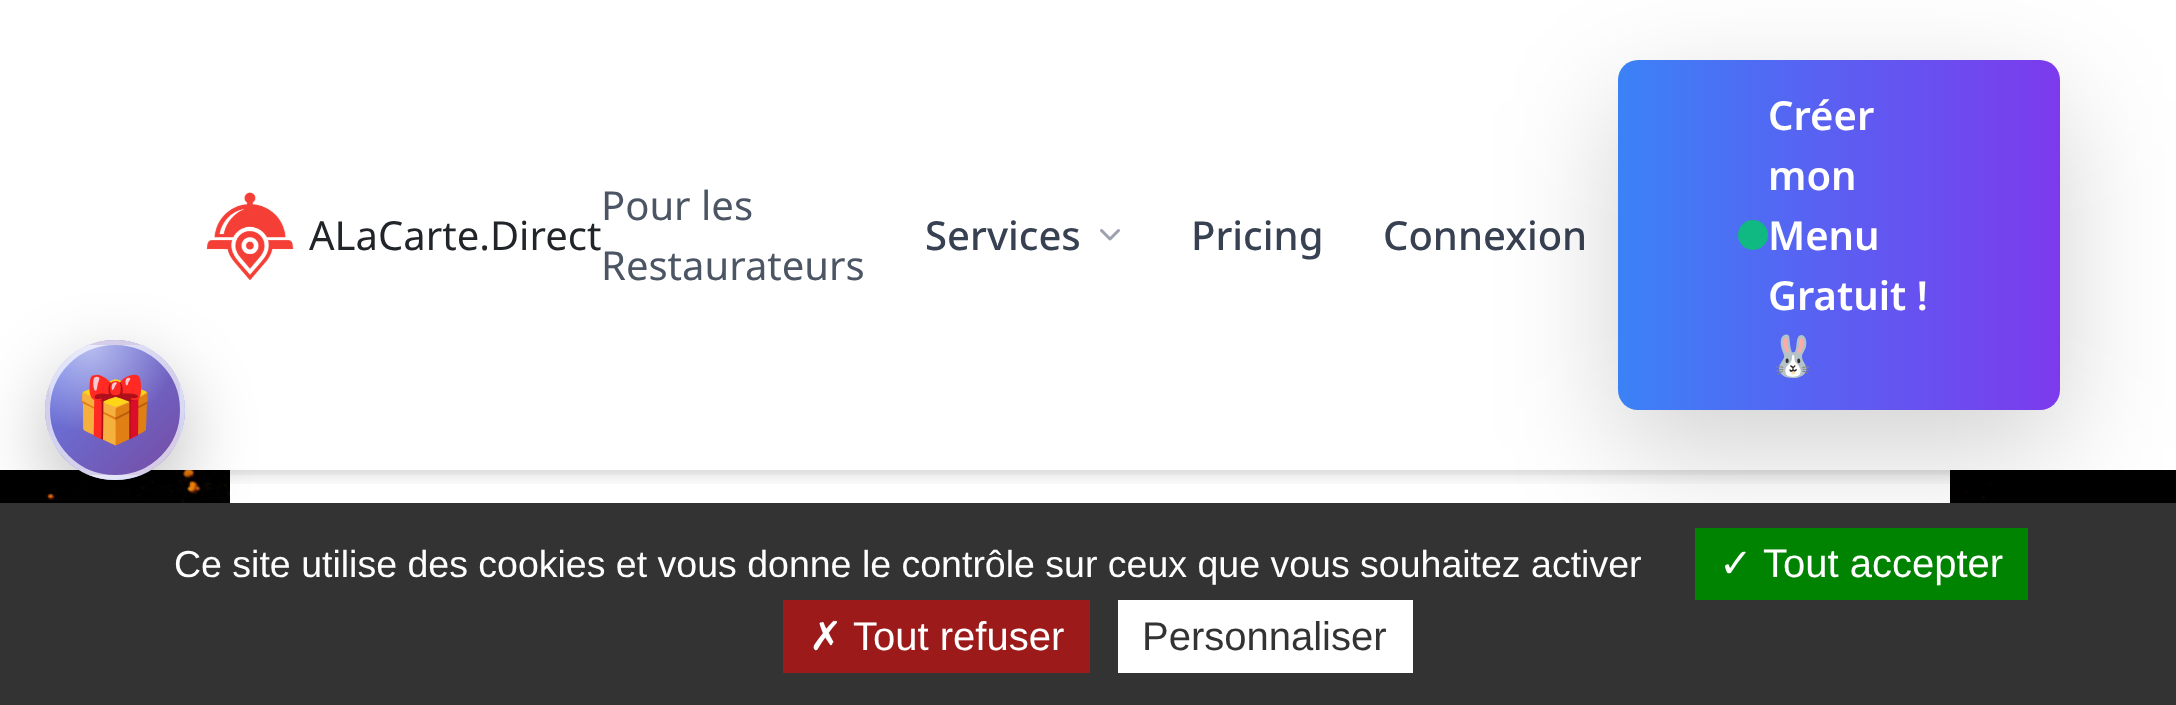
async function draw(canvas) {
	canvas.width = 2176;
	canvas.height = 705;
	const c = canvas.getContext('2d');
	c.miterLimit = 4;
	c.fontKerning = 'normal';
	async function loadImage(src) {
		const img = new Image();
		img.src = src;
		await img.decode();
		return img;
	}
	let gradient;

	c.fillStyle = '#fff';
	c.fillRect(0, 0, 2176, 705);
	c.drawImage(await loadImage('img3.png'), 0, 470, 2176, 33);
	c.beginPath();
	c.roundRect(230, 278, 1720, 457, 30);
	c.fill();
	c.save();
	c.beginPath();
	c.rect(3, 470, 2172, 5);
	c.clip();
	c.fillStyle = '#0000000f';
	c.filter = 'blur(5px)';
	c.beginPath();
	c.rect(3, 8, 2172, 465);
	c.fill();
	c.filter = 'none';
	c.restore();
	c.save();
	c.beginPath();
	c.rect(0, 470, 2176, 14);
	c.clip();
	c.fillStyle = '#0000001a';
	c.filter = 'blur(7.5px)';
	c.beginPath();
	c.rect(3, 13, 2172, 465);
	c.fill();
	c.filter = 'none';
	c.restore();
	c.drawImage(await loadImage('img1.png'), 206, 192, 88, 89);
	c.font = '40px Noto Sans';
	c.fillStyle = '#212529';
	c.fillText('ALaCarte.Direct', 309, 250);
	c.fillStyle = '#4b5563';
	c.fillText('Pour les', 601, 220);
	c.fillText('Restaurateurs', 601, 280);
	c.font = '500 40px Noto Sans';
	c.fillStyle = '#374151';
	c.fillText('Services', 925, 250);
	c.drawImage(await loadImage('img2.png'), 1100, 229, 20, 12);
	c.fillText('Pricing', 1191, 250);
	c.fillText('Connexion', 1383, 250);
	c.fillStyle = '#0000002e';
	c.filter = 'blur(60px)';
	c.beginPath();
	c.roundRect(1618, 100, 442, 350, 20);
	c.fill();
	c.filter = 'none';
	gradient = c.createLinearGradient(1618, 235, 2060, 235);
	gradient.addColorStop(0, '#3b82f6');
	gradient.addColorStop(1, '#7c3aed');
	c.fillStyle = gradient;
	c.beginPath();
	c.roundRect(1618, 60, 442, 350, 20);
	c.fill();
	c.font = '600 40px Noto Sans';
	c.fillStyle = '#fff';
	c.fillText('Créer', 1768, 130);
	c.fillText('mon', 1768, 190);
	c.fillStyle = '#10b981';
	c.beginPath();
	c.arc(1753, 235, 15, 0, 2 * Math.PI);
	c.fill();
	c.fillStyle = '#fff';
	c.fillText('Menu', 1768, 250);
	c.fillText('Gratuit !', 1768, 310);
	c.font = '40px Noto Color Emoji';
	c.fillText('🐰', 1768, 370);
	c.fillStyle = '#00000040';
	c.filter = 'blur(37.5px)';
	c.beginPath();
	c.roundRect(45, 365, 140, 140, 70);
	c.fill();
	c.filter = 'none';
	c.save();
	c.beginPath();
	c.roundRect(45, 340, 140, 140, 70);
	c.clip();
	gradient = c.createLinearGradient(50, 215, 180, 345);
	gradient.addColorStop(0, '#667eea');
	gradient.addColorStop(1, '#764ba2');
	c.fillStyle = gradient;
	c.fillRect(89, 340, 52, 5);
	gradient = c.createLinearGradient(-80, 345, 50, 475);
	gradient.addColorStop(0, '#667eea');
	gradient.addColorStop(1, '#764ba2');
	c.fillStyle = gradient;
	c.fillRect(45, 384, 5, 52);
	gradient = c.createLinearGradient(50, 345, 180, 475);
	gradient.addColorStop(0, '#667eea');
	gradient.addColorStop(1, '#764ba2');
	c.fillStyle = gradient;
	c.fillRect(50, 345, 130, 130);
	gradient = c.createLinearGradient(180, 345, 310, 475);
	gradient.addColorStop(0, '#667eea');
	gradient.addColorStop(1, '#764ba2');
	c.fillStyle = gradient;
	c.fillRect(180, 384, 5, 52);
	gradient = c.createLinearGradient(50, 475, 180, 605);
	gradient.addColorStop(0, '#667eea');
	gradient.addColorStop(1, '#764ba2');
	c.fillStyle = gradient;
	c.fillRect(89, 475, 52, 5);
	gradient = c.createRadialGradient(89, 345, 0, 89, 345, 159);
	gradient.addColorStop(0, '#ffffff87');
	gradient.addColorStop(0.55, '#ffffff00');
	c.fillStyle = gradient;
	c.fillRect(50, 345, 120, 84);
	gradient = c.createRadialGradient(219, 345, 0, 219, 345, 159);
	gradient.addColorStop(0, '#ffffff87');
	gradient.addColorStop(0.55, '#ffffff00');
	c.fillStyle = gradient;
	c.fillRect(180, 384, 5, 37);
	gradient = c.createRadialGradient(89, 475, 0, 89, 475, 159);
	gradient.addColorStop(0, '#ffffff87');
	gradient.addColorStop(0.55, '#ffffff00');
	c.fillStyle = gradient;
	c.fillRect(89, 475, 52, 5);
	c.restore();
	c.beginPath();
	c.arc(115, 410, 67.5, 0, 2 * Math.PI);
	c.strokeStyle = '#ffffffb3';
	c.lineWidth = 5;
	c.stroke();
	c.font = '64px Noto Color Emoji';
	c.fillStyle = '#fff';
	c.fillText('🎁', 75, 432);
	c.fillStyle = '#333';
	c.fillRect(0, 503, 2176, 202);
	c.font = '37.5px Liberation Sans';
	c.fillStyle = '#fff';
	c.fillText('Ce site utilise des cookies et vous donne le contrôle sur ceux que vous souhaitez activer', 174, 577);
	c.fillStyle = '#008300';
	c.fillRect(1695, 528, 333, 72);
	c.font = '40px DejaVu Sans';
	c.fillStyle = '#fff';
	c.fillText('✓', 1719, 577);
	c.font = '40px Liberation Sans';
	c.fillText('Tout accepter', 1763, 577);
	c.fillStyle = '#9c1a1a';
	c.fillRect(783, 600, 307, 73);
	c.font = '40px DejaVu Sans';
	c.fillStyle = '#fff';
	c.fillText('✗', 809, 650);
	c.font = '40px Liberation Sans';
	c.fillText('Tout refuser', 853, 650);
	c.fillRect(1118, 600, 295, 73);
	c.fillStyle = '#333';
	c.fillText('Personnaliser', 1142, 650);
}

draw(document.querySelector('canvas'));
